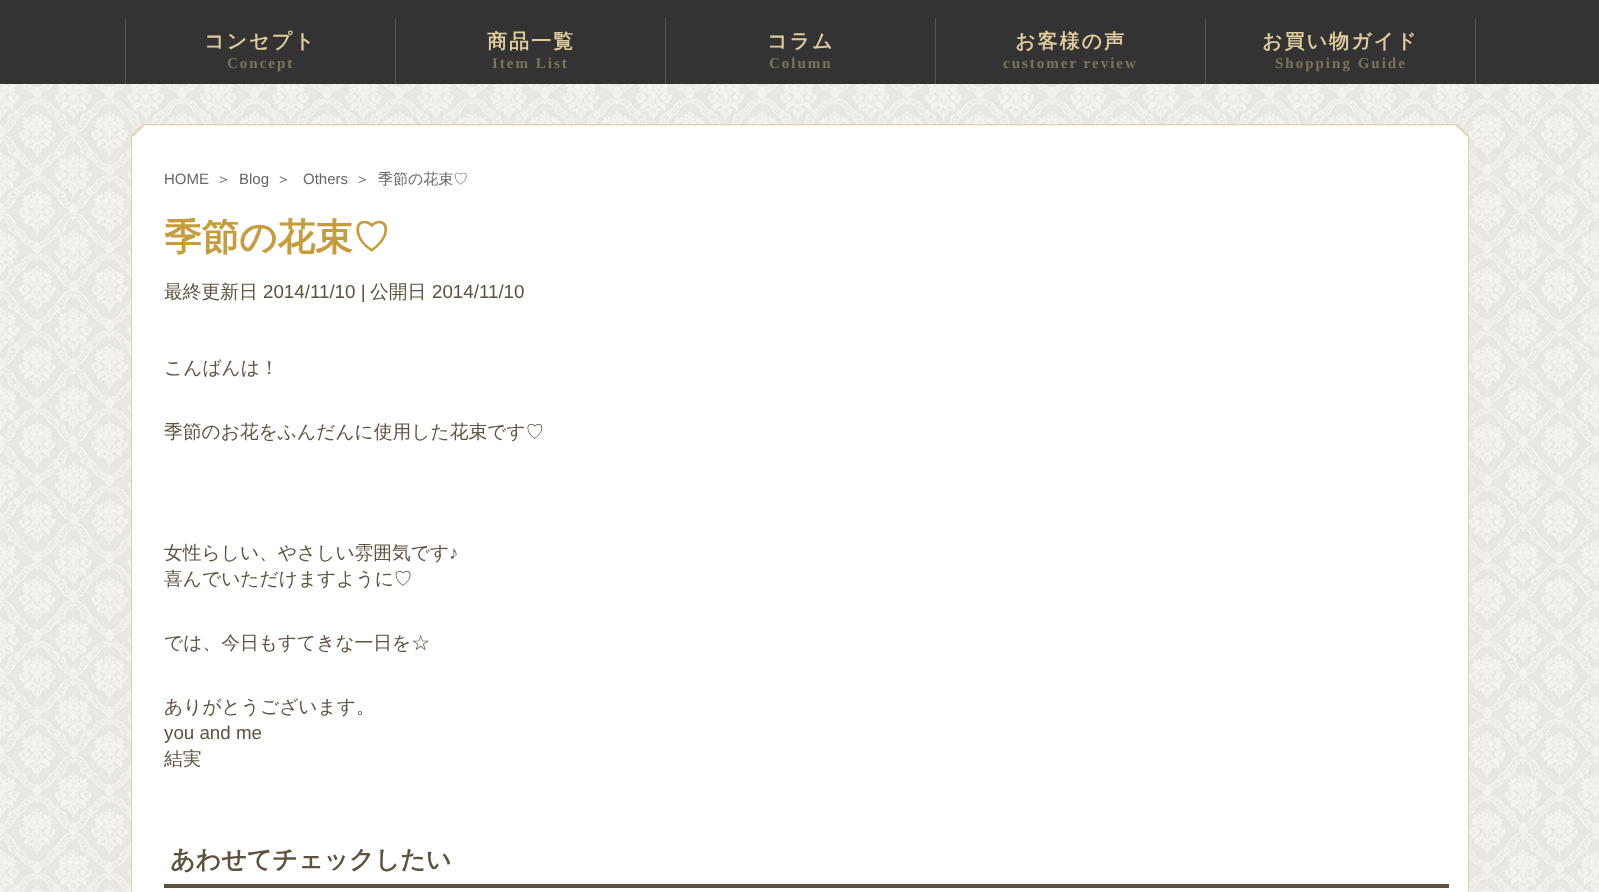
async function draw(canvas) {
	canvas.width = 1599;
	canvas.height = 892;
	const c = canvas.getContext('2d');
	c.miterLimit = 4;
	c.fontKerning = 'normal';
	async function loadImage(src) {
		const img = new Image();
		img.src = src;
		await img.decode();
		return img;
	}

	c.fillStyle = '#fff';
	c.fillRect(0, 0, 1599, 892);
	c.drawImage(await loadImage('img1.png'), 0, 84, 1599, 808);
	for (const [x, y, w, h, color] of [
		[0, 0, 1599, 84, '#333'],
		[125, 18, 1, 66, '#555'],
		[395, 18, 1, 66, '#555'],
	]) {
		c.fillStyle = color;
		c.fillRect(x, y, w, h);
	}
	c.letterSpacing = '2px';
	c.font = 'bold 20px WenQuanYi Zen Hei';
	c.fillStyle = '#decb9e';
	c.fillText('コンセプト', 204, 48);
	c.font = 'bold 15px Liberation Serif';
	c.fillStyle = '#7d745e';
	c.fillText('Concept', 227, 68);
	c.fillStyle = '#555';
	c.fillRect(665, 18, 1, 66);
	c.font = 'bold 20px WenQuanYi Zen Hei';
	c.fillStyle = '#decb9e';
	c.fillText('商品一覧', 487, 48);
	c.font = 'bold 15px Liberation Serif';
	c.fillStyle = '#7d745e';
	c.fillText('Item List', 492, 68);
	c.fillStyle = '#555';
	c.fillRect(935, 18, 1, 66);
	c.font = 'bold 20px WenQuanYi Zen Hei';
	c.fillStyle = '#decb9e';
	c.fillText('コラム', 767, 48);
	c.font = 'bold 15px Liberation Serif';
	c.fillStyle = '#7d745e';
	c.fillText('Column', 769, 68);
	c.fillStyle = '#555';
	c.fillRect(1205, 18, 1, 66);
	c.font = 'bold 20px WenQuanYi Zen Hei';
	c.fillStyle = '#decb9e';
	c.fillText('お客様の声', 1015, 48);
	c.font = 'bold 15px Liberation Serif';
	c.fillStyle = '#7d745e';
	c.fillText('customer review', 1003, 68);
	c.fillStyle = '#555';
	c.fillRect(1475, 18, 1, 66);
	c.font = 'bold 20px WenQuanYi Zen Hei';
	c.fillStyle = '#decb9e';
	c.fillText('お買い物ガイド', 1262, 48);
	c.font = 'bold 15px Liberation Serif';
	c.fillStyle = '#7d745e';
	c.fillText('Shopping Guide', 1275, 68);
	c.drawImage(await loadImage('img2.png'), 131, 124, 13, 12);
	c.drawImage(await loadImage('img3.png'), 143, 124, 1326, 12);
	for (const [x, y, w, h, color] of [
		[132, 136, 1336, 756, '#fff'],
		[1468, 136, 1, 756, '#e1cfb1'],
		[131, 136, 1, 756, '#e1cfb1'],
	]) {
		c.fillStyle = color;
		c.fillRect(x, y, w, h);
	}
	c.letterSpacing = '0px';
	c.font = '15px Liberation Sans';
	c.fillStyle = '#666';
	c.fillText('HOME', 164, 184);
	c.font = '500 15px WenQuanYi Zen Hei';
	c.fillText('＞', 216, 184);
	c.font = '15px Liberation Sans';
	c.fillText('Blog', 239, 184);
	c.font = '500 15px WenQuanYi Zen Hei';
	c.fillText('＞', 276, 184);
	c.font = '15px Liberation Sans';
	c.fillText('Others', 303, 184);
	c.font = '500 15px WenQuanYi Zen Hei';
	c.fillText('＞', 355, 184);
	c.fillText('季節の花束♡', 378, 184);
	c.font = 'bold 37.5px WenQuanYi Zen Hei';
	c.fillStyle = '#c79c3d';
	c.fillText('季節の花束♡', 164, 250);
	c.font = '500 18.75px WenQuanYi Zen Hei';
	c.fillStyle = '#5f523f';
	c.fillText('最終更新日', 164, 298);
	c.font = '18.75px Liberation Sans';
	c.fillText('2014/11/10 |', 263, 298);
	c.font = '500 18.75px WenQuanYi Zen Hei';
	c.fillText('公開日', 370, 298);
	c.font = '18.75px Liberation Sans';
	c.fillText('2014/11/10', 432, 298);
	c.font = '500 18.75px WenQuanYi Zen Hei';
	for (const [text, x, y] of [
		['こんばんは！', 164, 374],
		['季節のお花をふんだんに使用した花束です♡', 164, 438],
		['女性らしい、やさしい雰囲気です', 164, 559],
	]) {
		c.fillText(text, x, y);
	}
	c.font = '18.75px Liberation Sans';
	c.fillText('♪', 449, 559);
	c.font = '500 18.75px WenQuanYi Zen Hei';
	for (const [text, x, y] of [
		['喜んでいただけますように♡', 164, 585],
		['では、今日もすてきな一日を☆', 164, 649],
		['ありがとうございます。', 164, 713],
	]) {
		c.fillText(text, x, y);
	}
	c.font = '18.75px Liberation Sans';
	c.fillText('you and me', 164, 739);
	c.font = '500 18.75px WenQuanYi Zen Hei';
	c.fillText('結実', 164, 765);
	c.fillRect(164, 884, 1285, 4);
	c.font = 'bold 25px WenQuanYi Zen Hei';
	c.fillText('あわせてチェックしたい', 170, 868);
}

draw(document.querySelector('canvas'));
